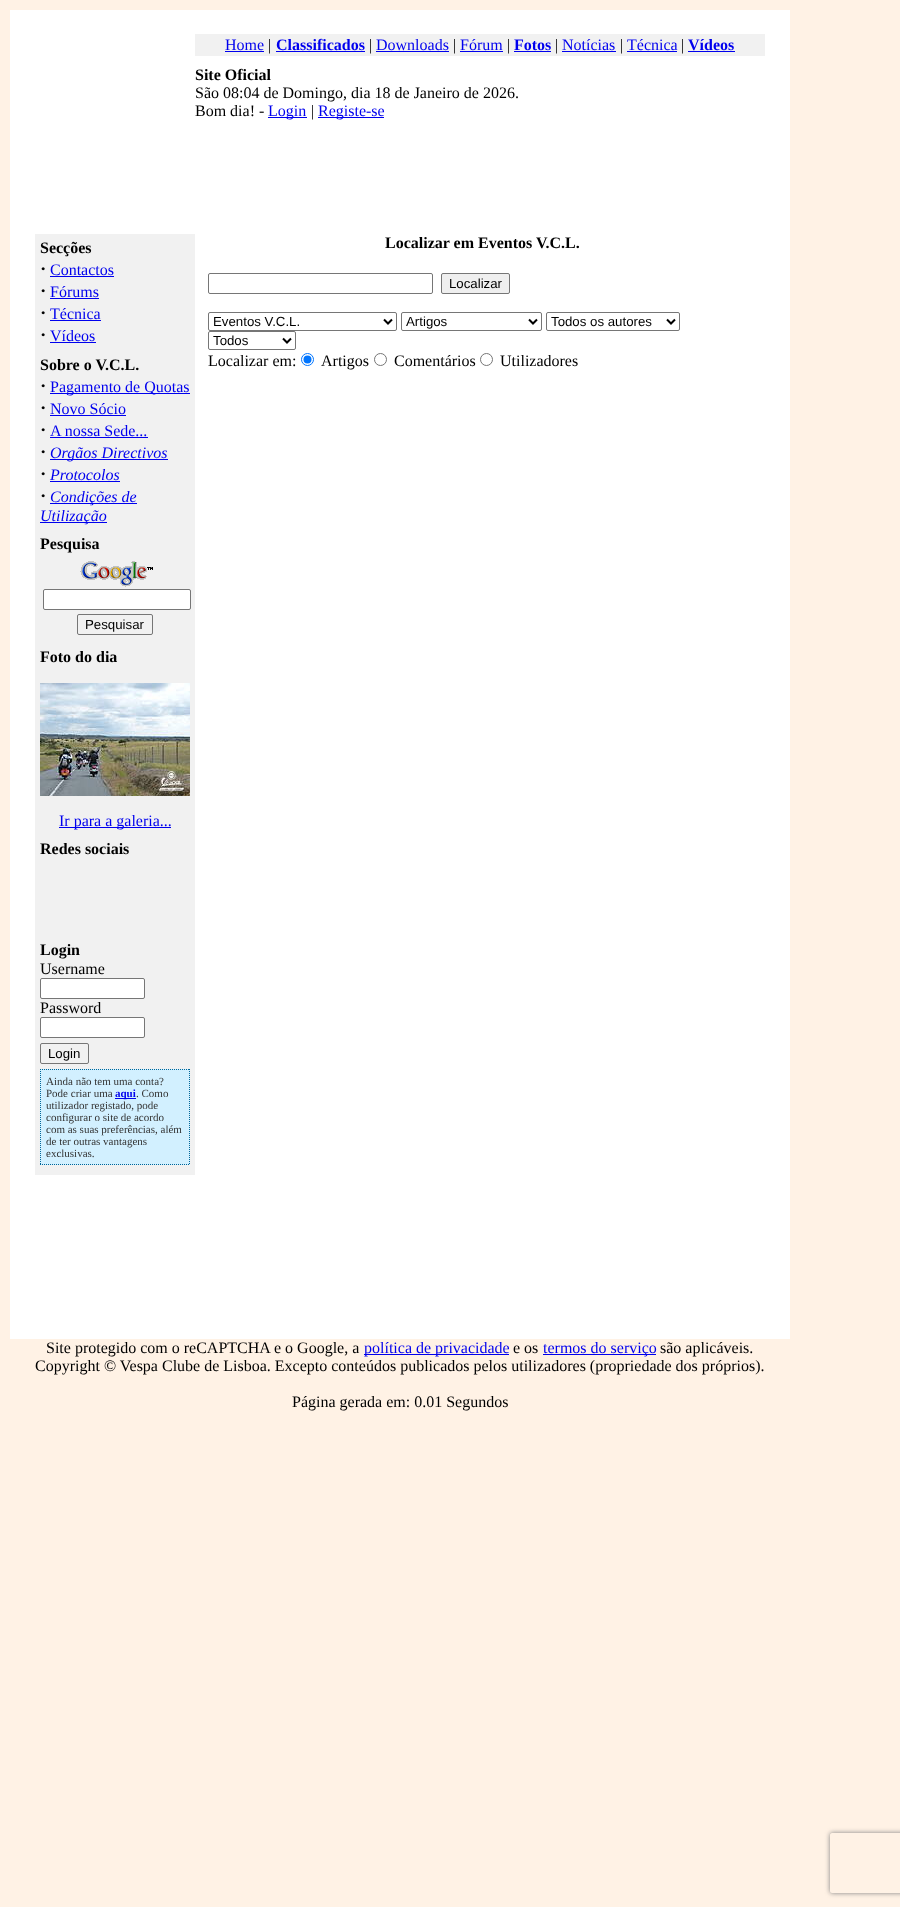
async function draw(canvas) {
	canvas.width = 900;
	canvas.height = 1907;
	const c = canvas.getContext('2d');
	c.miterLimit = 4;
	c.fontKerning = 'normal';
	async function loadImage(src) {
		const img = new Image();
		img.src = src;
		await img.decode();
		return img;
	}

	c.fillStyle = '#fff2e5';
	c.fillRect(0, 0, 900, 1907);
	for (const [x, y, w, h, color] of [
		[10, 10, 780, 23, '#fff'],
		[10, 33, 780, 200, '#fff'],
		[195, 34, 570, 22, '#f1f1f1'],
	]) {
		c.fillStyle = color;
		c.fillRect(x, y, w, h);
	}
	c.font = '16px Liberation Serif';
	c.fillStyle = '#00e';
	c.fillText('Home', 225, 50);
	c.fillRect(225, 51, 39, 1);
	c.fillStyle = '#000';
	c.fillText('|', 268, 50);
	c.font = 'bold 16px Liberation Serif';
	c.fillStyle = '#00e';
	c.fillText('Classificados', 276, 50);
	c.fillRect(276, 51, 89, 1);
	c.font = '16px Liberation Serif';
	c.fillStyle = '#000';
	c.fillText('|', 369, 50);
	c.fillStyle = '#00e';
	c.fillText('Downloads', 376, 50);
	c.fillRect(376, 51, 73, 1);
	c.fillStyle = '#000';
	c.fillText('|', 453, 50);
	c.fillStyle = '#00e';
	c.fillText('Fórum', 460, 50);
	c.fillRect(460, 51, 43, 1);
	c.fillStyle = '#000';
	c.fillText('|', 507, 50);
	c.font = 'bold 16px Liberation Serif';
	c.fillStyle = '#00e';
	c.fillText('Fotos', 514, 50);
	c.fillRect(514, 51, 37, 1);
	c.font = '16px Liberation Serif';
	c.fillStyle = '#000';
	c.fillText('|', 555, 50);
	c.fillStyle = '#00e';
	c.fillText('Notícias', 562, 50);
	c.fillRect(562, 51, 54, 1);
	c.fillStyle = '#000';
	c.fillText('|', 620, 50);
	c.fillStyle = '#00e';
	c.fillText('Técnica', 627, 50);
	c.fillRect(627, 51, 50, 1);
	c.fillStyle = '#000';
	c.fillText('|', 681, 50);
	c.font = 'bold 16px Liberation Serif';
	c.fillStyle = '#00e';
	c.fillText('Vídeos', 688, 50);
	c.fillRect(688, 51, 47, 1);
	c.fillStyle = '#000';
	c.fillText('Site Oficial', 195, 80);
	c.font = '16px Liberation Serif';
	c.fillText('São 08:04 de Domingo, dia 18 de Janeiro de 2026.', 195, 98);
	c.fillText('Bom dia! -', 195, 116);
	c.fillStyle = '#00e';
	c.fillRect(268, 117, 39, 1);
	c.fillText('Login', 268, 116);
	c.fillStyle = '#000';
	c.fillText('|', 311, 116);
	c.fillStyle = '#00e';
	c.fillRect(318, 117, 66, 1);
	c.fillText('Registe-se', 318, 116);
	c.fillStyle = '#fff';
	c.fillRect(10, 233, 780, 943);
	c.fillStyle = '#f1f1f1';
	c.fillRect(35, 234, 160, 941);
	c.font = 'bold 16px Liberation Serif';
	c.fillStyle = '#000';
	c.fillText('Secções', 40, 253);
	c.font = 'bold 19px Liberation Serif';
	c.fillText('·', 40, 275);
	c.font = '16px Liberation Serif';
	c.fillStyle = '#00e';
	c.fillText('Contactos', 50, 275);
	c.fillRect(50, 276, 64, 1);
	c.font = 'bold 19px Liberation Serif';
	c.fillStyle = '#000';
	c.fillText('·', 40, 297);
	c.font = '16px Liberation Serif';
	c.fillStyle = '#00e';
	c.fillText('Fórums', 50, 297);
	c.fillRect(50, 298, 49, 1);
	c.font = 'bold 19px Liberation Serif';
	c.fillStyle = '#000';
	c.fillText('·', 40, 319);
	c.font = '16px Liberation Serif';
	c.fillStyle = '#00e';
	c.fillText('Técnica', 50, 319);
	c.fillRect(50, 320, 51, 1);
	c.font = 'bold 19px Liberation Serif';
	c.fillStyle = '#000';
	c.fillText('·', 40, 341);
	c.font = '16px Liberation Serif';
	c.fillStyle = '#00e';
	c.fillText('Vídeos', 50, 341);
	c.fillRect(50, 342, 46, 1);
	c.font = 'bold 16px Liberation Serif';
	c.fillStyle = '#000';
	c.fillText('Sobre o V.C.L.', 40, 370);
	c.font = 'bold 19px Liberation Serif';
	c.fillText('·', 40, 392);
	c.fillStyle = '#00e';
	c.fillRect(50, 393, 140, 1);
	c.font = '16px Liberation Serif';
	c.fillText('Pagamento de Quotas', 50, 392);
	c.font = 'bold 19px Liberation Serif';
	c.fillStyle = '#000';
	c.fillText('·', 40, 414);
	c.font = '16px Liberation Serif';
	c.fillStyle = '#00e';
	c.fillText('Novo Sócio', 50, 414);
	c.fillRect(50, 415, 76, 1);
	c.font = 'bold 19px Liberation Serif';
	c.fillStyle = '#000';
	c.fillText('·', 40, 436);
	c.font = '16px Liberation Serif';
	c.fillStyle = '#00e';
	c.fillText('A nossa Sede...', 50, 436);
	c.fillRect(50, 437, 98, 1);
	c.font = 'bold 19px Liberation Serif';
	c.fillStyle = '#000';
	c.fillText('·', 40, 458);
	c.fillStyle = '#00e';
	c.fillRect(50, 459, 118, 1);
	c.font = 'italic 16px Liberation Serif';
	c.fillText('Orgãos Directivos', 50, 458);
	c.font = 'bold 19px Liberation Serif';
	c.fillStyle = '#000';
	c.fillText('·', 40, 480);
	c.font = 'italic 16px Liberation Serif';
	c.fillStyle = '#00e';
	c.fillText('Protocolos', 50, 480);
	c.fillRect(50, 481, 70, 1);
	c.font = 'bold 19px Liberation Serif';
	c.fillStyle = '#000';
	c.fillText('·', 40, 502);
	c.fillStyle = '#00e';
	c.fillRect(50, 503, 87, 1);
	c.font = 'italic 16px Liberation Serif';
	c.fillText('Condições de', 50, 502);
	c.fillRect(40, 522, 67, 1);
	c.fillText('Utilização', 40, 521);
	c.font = 'bold 16px Liberation Serif';
	c.fillStyle = '#000';
	c.fillText('Pesquisa', 40, 549);
	c.drawImage(await loadImage('img1.png'), 80, 561, 73, 26);
	c.fillStyle = '#fff';
	c.beginPath();
	c.roundRect(43.5, 589.5, 147, 20, 1.5);
	c.fill();
	c.strokeStyle = '#767676';
	c.stroke();
	c.beginPath();
	c.roundRect(77.5, 614.5, 75, 20, 1.5);
	c.stroke();
	c.font = '13.25px Liberation Sans';
	c.fillStyle = '#000';
	c.fillText('Pesquisar', 85, 629);
	c.font = 'bold 16px Liberation Serif';
	c.fillText('Foto do dia', 40, 662);
	c.drawImage(await loadImage('img2.png'), 40, 683, 150, 113);
	c.fillStyle = '#00e';
	c.fillRect(59, 827, 112, 1);
	c.font = '16px Liberation Serif';
	c.fillText('Ir para a galeria...', 59, 826);
	c.font = 'bold 16px Liberation Serif';
	c.fillStyle = '#000';
	c.fillText('Redes sociais', 40, 854);
	c.fillText('Login', 40, 955);
	c.font = '16px Liberation Serif';
	c.fillText('Username', 40, 974);
	c.fillStyle = '#fff';
	c.beginPath();
	c.roundRect(40.5, 978.5, 104, 20, 1.5);
	c.fill();
	c.stroke();
	c.fillStyle = '#000';
	c.fillText('Password', 40, 1013);
	c.fillStyle = '#fff';
	c.beginPath();
	c.roundRect(40.5, 1017.5, 104, 20, 1.5);
	c.fill();
	c.stroke();
	c.beginPath();
	c.roundRect(40.5, 1043.5, 48, 20, 1.5);
	c.stroke();
	c.font = '13.25px Liberation Sans';
	c.fillStyle = '#000';
	c.fillText('Login', 48, 1058);
	c.fillStyle = '#d2f0ff';
	c.fillRect(40, 1069, 150, 96);
	c.beginPath();
	c.moveTo(40, 1069.5);
	c.lineTo(190, 1069.5);
	c.strokeStyle = '#069';
	c.setLineDash([1, 1]);
	c.stroke();
	c.beginPath();
	c.moveTo(189.5, 1069);
	c.lineTo(189.5, 1165);
	c.stroke();
	c.beginPath();
	c.moveTo(40, 1164.5);
	c.lineTo(190, 1164.5);
	c.stroke();
	c.beginPath();
	c.moveTo(40.5, 1069);
	c.lineTo(40.5, 1165);
	c.stroke();
	c.font = '11px Liberation Serif';
	c.fillStyle = '#333';
	c.fillText('Ainda não tem uma conta?', 46, 1085);
	c.fillText('Pode criar uma', 46, 1097);
	c.fillStyle = '#00e';
	c.fillRect(115, 1098, 21, 1);
	c.font = 'bold 11px Liberation Serif';
	c.fillText('aqui', 115, 1097);
	c.font = '11px Liberation Serif';
	c.fillStyle = '#333';
	for (const [text, x, y] of [
		['. Como', 136, 1097],
		['utilizador registado, pode', 46, 1109],
		['configurar o site de acordo', 46, 1121],
		['com as suas preferências, além', 46, 1133],
		['de ter outras vantagens', 46, 1145],
		['exclusivas.', 46, 1157],
	]) {
		c.fillText(text, x, y);
	}
	c.font = 'bold 16px Liberation Serif';
	c.fillStyle = '#000';
	c.fillText('Localizar em Eventos V.C.L.', 385, 248);
	c.beginPath();
	c.roundRect(208.5, 273.5, 224, 20, 1.5);
	c.strokeStyle = '#767676';
	c.setLineDash([]);
	c.stroke();
	c.fillStyle = '#efefef';
	c.beginPath();
	c.roundRect(441.5, 273.5, 68, 20, 1.5);
	c.fill();
	c.stroke();
	c.font = '13.25px Liberation Sans';
	c.fillStyle = '#000';
	c.fillText('Localizar', 449, 288);
	c.beginPath();
	c.roundRect(208.5, 312.5, 188, 18, 1.5);
	c.stroke();
	c.beginPath();
	c.moveTo(384, 319.5);
	c.lineTo(388, 323.5);
	c.lineTo(392, 319.5);
	c.strokeStyle = '#000';
	c.lineWidth = 2;
	c.stroke();
	c.fillText('Eventos V.C.L.', 213, 326);
	c.beginPath();
	c.roundRect(401.5, 312.5, 140, 18, 1.5);
	c.strokeStyle = '#767676';
	c.lineWidth = 1;
	c.stroke();
	c.beginPath();
	c.moveTo(529, 319.5);
	c.lineTo(533, 323.5);
	c.lineTo(537, 319.5);
	c.strokeStyle = '#000';
	c.lineWidth = 2;
	c.stroke();
	c.fillText('Artigos', 406, 326);
	c.beginPath();
	c.roundRect(546.5, 312.5, 133, 18, 1.5);
	c.strokeStyle = '#767676';
	c.lineWidth = 1;
	c.stroke();
	c.beginPath();
	c.moveTo(667, 319.5);
	c.lineTo(671, 323.5);
	c.lineTo(675, 319.5);
	c.strokeStyle = '#000';
	c.lineWidth = 2;
	c.stroke();
	c.fillText('Todos os autores', 551, 326);
	c.beginPath();
	c.roundRect(208.5, 331.5, 87, 18, 1.5);
	c.strokeStyle = '#767676';
	c.lineWidth = 1;
	c.stroke();
	c.beginPath();
	c.moveTo(283, 338.5);
	c.lineTo(287, 342.5);
	c.lineTo(291, 338.5);
	c.strokeStyle = '#000';
	c.lineWidth = 2;
	c.stroke();
	c.fillText('Todos', 213, 345);
	c.font = '16px Liberation Serif';
	c.fillText('Localizar em:', 208, 366);
	c.beginPath();
	c.arc(307.5, 359.5, 6, 0, 2 * Math.PI);
	c.strokeStyle = '#0075ff';
	c.lineWidth = 1;
	c.stroke();
	c.fillStyle = '#0075ff';
	c.beginPath();
	c.arc(307.5, 359.5, 4, 0, 2 * Math.PI);
	c.fill();
	c.fillStyle = '#000';
	c.fillText('Artigos', 321, 366);
	c.beginPath();
	c.arc(380.5, 359.5, 6, 0, 2 * Math.PI);
	c.strokeStyle = '#767676';
	c.stroke();
	c.fillText('Comentários', 394, 366);
	c.beginPath();
	c.arc(486.5, 359.5, 6, 0, 2 * Math.PI);
	c.stroke();
	c.fillText('Utilizadores', 500, 366);
	for (const [x, y, w, h, color] of [
		[10, 1176, 780, 122, '#fff'],
		[10, 1298, 780, 18, '#fff'],
		[10, 1316, 780, 23, '#fff'],
	]) {
		c.fillStyle = color;
		c.fillRect(x, y, w, h);
	}
	c.fillStyle = '#000';
	c.fillText('Site protegido com o reCAPTCHA e o Google, a', 46, 1353);
	c.fillStyle = '#00e';
	c.fillRect(364, 1354, 145, 1);
	c.fillText('política de privacidade', 364, 1353);
	c.fillStyle = '#000';
	c.fillText('e os', 513, 1353);
	c.fillStyle = '#00e';
	c.fillRect(543, 1354, 113, 1);
	c.fillText('termos do serviço', 543, 1353);
	c.fillStyle = '#000';
	for (const [text, x, y] of [
		['são aplicáveis.', 660, 1353],
		['Copyright © Vespa Clube de Lisboa. Excepto conteúdos publicados pelos utilizadores (propriedade dos próprios).', 35, 1371],
		['Página gerada em: 0.01 Segundos', 292, 1407],
	]) {
		c.fillText(text, x, y);
	}
	c.save();
	c.beginPath();
	c.moveTo(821, 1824);
	c.lineTo(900, 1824);
	c.lineTo(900, 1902);
	c.lineTo(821, 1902);
	c.closePath();
	c.moveTo(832, 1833);
	c.lineTo(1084, 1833);
	c.bezierCurveTo(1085, 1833, 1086, 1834, 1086, 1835);
	c.lineTo(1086, 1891);
	c.bezierCurveTo(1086, 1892, 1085, 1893, 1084, 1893);
	c.lineTo(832, 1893);
	c.bezierCurveTo(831, 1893, 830, 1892, 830, 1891);
	c.lineTo(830, 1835);
	c.bezierCurveTo(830, 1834, 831, 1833, 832, 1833);
	c.closePath();
	c.clip('evenodd');
	c.fillStyle = '#808080';
	c.filter = 'blur(2.5px)';
	c.beginPath();
	c.roundRect(830, 1833, 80, 60, 2);
	c.fill();
	c.filter = 'none';
	c.restore();
}

draw(document.querySelector('canvas'));
